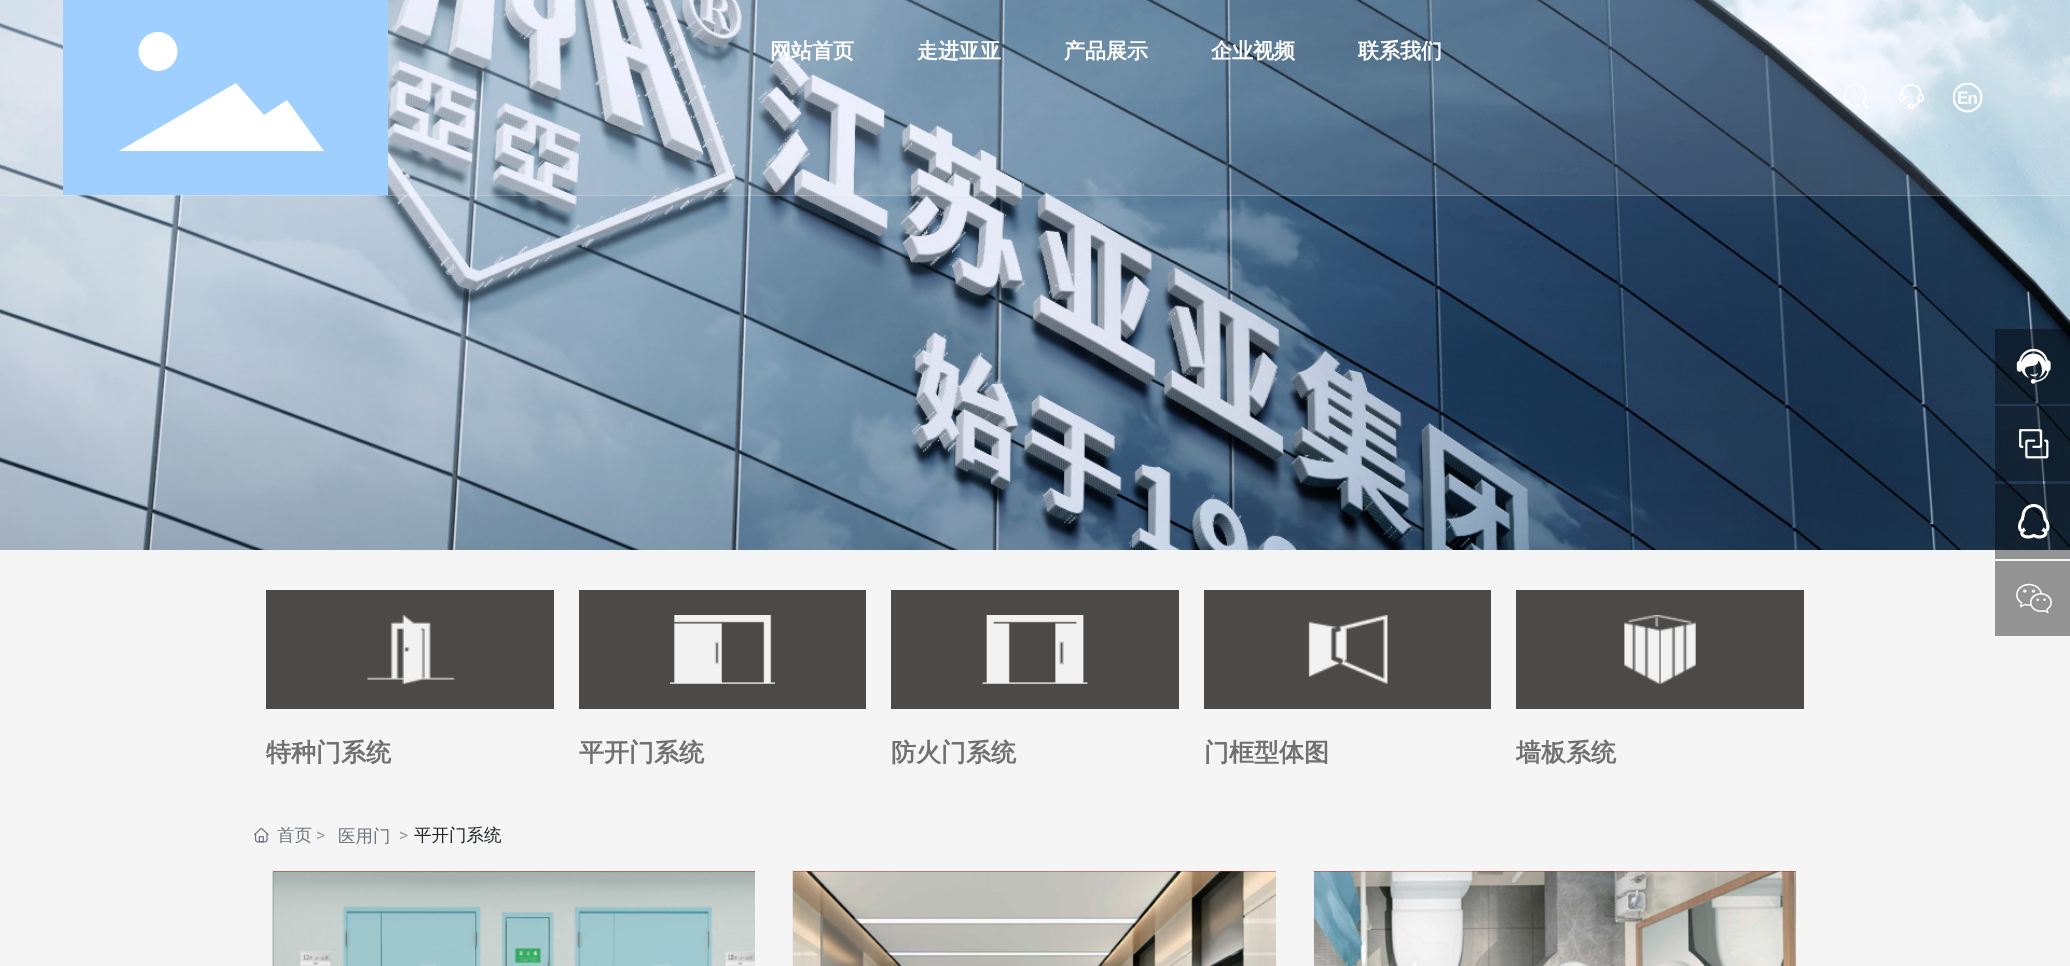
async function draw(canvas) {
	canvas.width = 2070;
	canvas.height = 966;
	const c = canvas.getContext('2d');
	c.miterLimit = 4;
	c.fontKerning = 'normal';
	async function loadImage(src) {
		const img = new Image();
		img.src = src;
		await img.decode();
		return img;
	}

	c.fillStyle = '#fff';
	c.fillRect(0, 0, 2070, 966);
	c.drawImage(await loadImage('img1.png'), 0, 0, 2070, 550);
	for (const [x, y, w, h, color] of [
		[0, 0, 2070, 196, '#ffffff1a'],
		[0, 195, 2070, 1, '#ffffff33'],
		[63, 0, 325, 195, '#9fcfff'],
	]) {
		c.fillStyle = color;
		c.fillRect(x, y, w, h);
	}
	c.fillStyle = '#fff';
	c.beginPath();
	c.arc(158, 51.5, 19.5, 0, 2 * Math.PI);
	c.fill();
	c.beginPath();
	c.moveTo(119, 151);
	c.lineTo(236, 83);
	c.lineTo(264, 115);
	c.lineTo(287, 100);
	c.lineTo(324, 151);
	c.closePath();
	c.fill();
	c.font = 'bold 21px WenQuanYi Zen Hei';
	for (const [text, x, y] of [
		['网站首页', 770, 58],
		['走进亚亚', 917, 58],
		['产品展示', 1064, 58],
		['企业视频', 1211, 58],
		['联系我们', 1358, 58],
	]) {
		c.fillText(text, x, y);
	}
	c.drawImage(await loadImage('img2.png'), 1844, 84, 25, 25);
	c.drawImage(await loadImage('img3.png'), 1899, 84, 25, 25);
	c.drawImage(await loadImage('img4.png'), 1953, 83, 30, 30);
	c.fillStyle = '#f5f5f5';
	c.fillRect(0, 550, 2070, 416);
	c.fillStyle = '#4c4a49';
	c.fillRect(266, 590, 288, 119);
	c.drawImage(await loadImage('img5.png'), 367, 615, 88, 69);
	c.font = 'bold 25px WenQuanYi Zen Hei';
	c.fillStyle = '#707070';
	c.fillText('特种门系统', 266, 761);
	c.fillStyle = '#4c4a49';
	c.fillRect(579, 590, 287, 119);
	c.drawImage(await loadImage('img6.png'), 670, 615, 105, 69);
	c.fillStyle = '#707070';
	c.fillText('平开门系统', 579, 761);
	c.fillStyle = '#4c4a49';
	c.fillRect(891, 590, 288, 119);
	c.drawImage(await loadImage('img7.png'), 982, 615, 106, 69);
	c.fillStyle = '#707070';
	c.fillText('防火门系统', 891, 761);
	c.fillStyle = '#4c4a49';
	c.fillRect(1204, 590, 287, 119);
	c.drawImage(await loadImage('img8.png'), 1308, 615, 80, 69);
	c.fillStyle = '#707070';
	c.fillText('门框型体图', 1204, 761);
	c.fillStyle = '#4c4a49';
	c.fillRect(1516, 590, 288, 119);
	c.drawImage(await loadImage('img9.png'), 1624, 615, 72, 69);
	c.fillStyle = '#707070';
	c.fillText('墙板系统', 1516, 761);
	c.drawImage(await loadImage('img10.png'), 254, 828, 15, 15);
	c.font = '500 17.5px WenQuanYi Zen Hei';
	c.fillStyle = '#6c757d';
	c.fillText('首页', 277, 841);
	c.font = '17.5px Roboto';
	c.fillStyle = '#999';
	c.fillText('>', 316, 841);
	c.font = '500 17.5px WenQuanYi Zen Hei';
	c.fillStyle = '#6c757d';
	c.fillText('医用门', 338, 842);
	c.font = '17.5px Roboto';
	c.fillStyle = '#999';
	c.fillText('>', 399, 841);
	c.font = '500 17.5px WenQuanYi Zen Hei';
	c.fillStyle = '#212529';
	c.fillText('平开门系统', 414, 841);
	c.fillStyle = '#b61d22';
	c.fillRect(273, 871, 482, 1);
	c.drawImage(await loadImage('img11.png'), 272, 871, 483, 95);
	c.fillRect(793, 871, 483, 1);
	c.drawImage(await loadImage('img12.png'), 792, 871, 485, 95);
	c.fillRect(1314, 871, 482, 1);
	c.drawImage(await loadImage('img13.png'), 1313, 871, 484, 95);
	c.fillStyle = '#00000066';
	c.fillRect(1995, 329, 75, 75);
	c.drawImage(await loadImage('img14.png'), 2016, 348, 35, 36);
	c.fillRect(1995, 406, 75, 75);
	c.drawImage(await loadImage('img15.png'), 2019, 429, 30, 30);
	c.fillRect(1995, 484, 75, 75);
	c.drawImage(await loadImage('img16.png'), 2018, 504, 32, 35);
	c.fillStyle = '#939393';
	c.fillRect(1995, 561, 75, 75);
	c.drawImage(await loadImage('img17.png'), 2016, 583, 36, 31);
}

draw(document.querySelector('canvas'));
